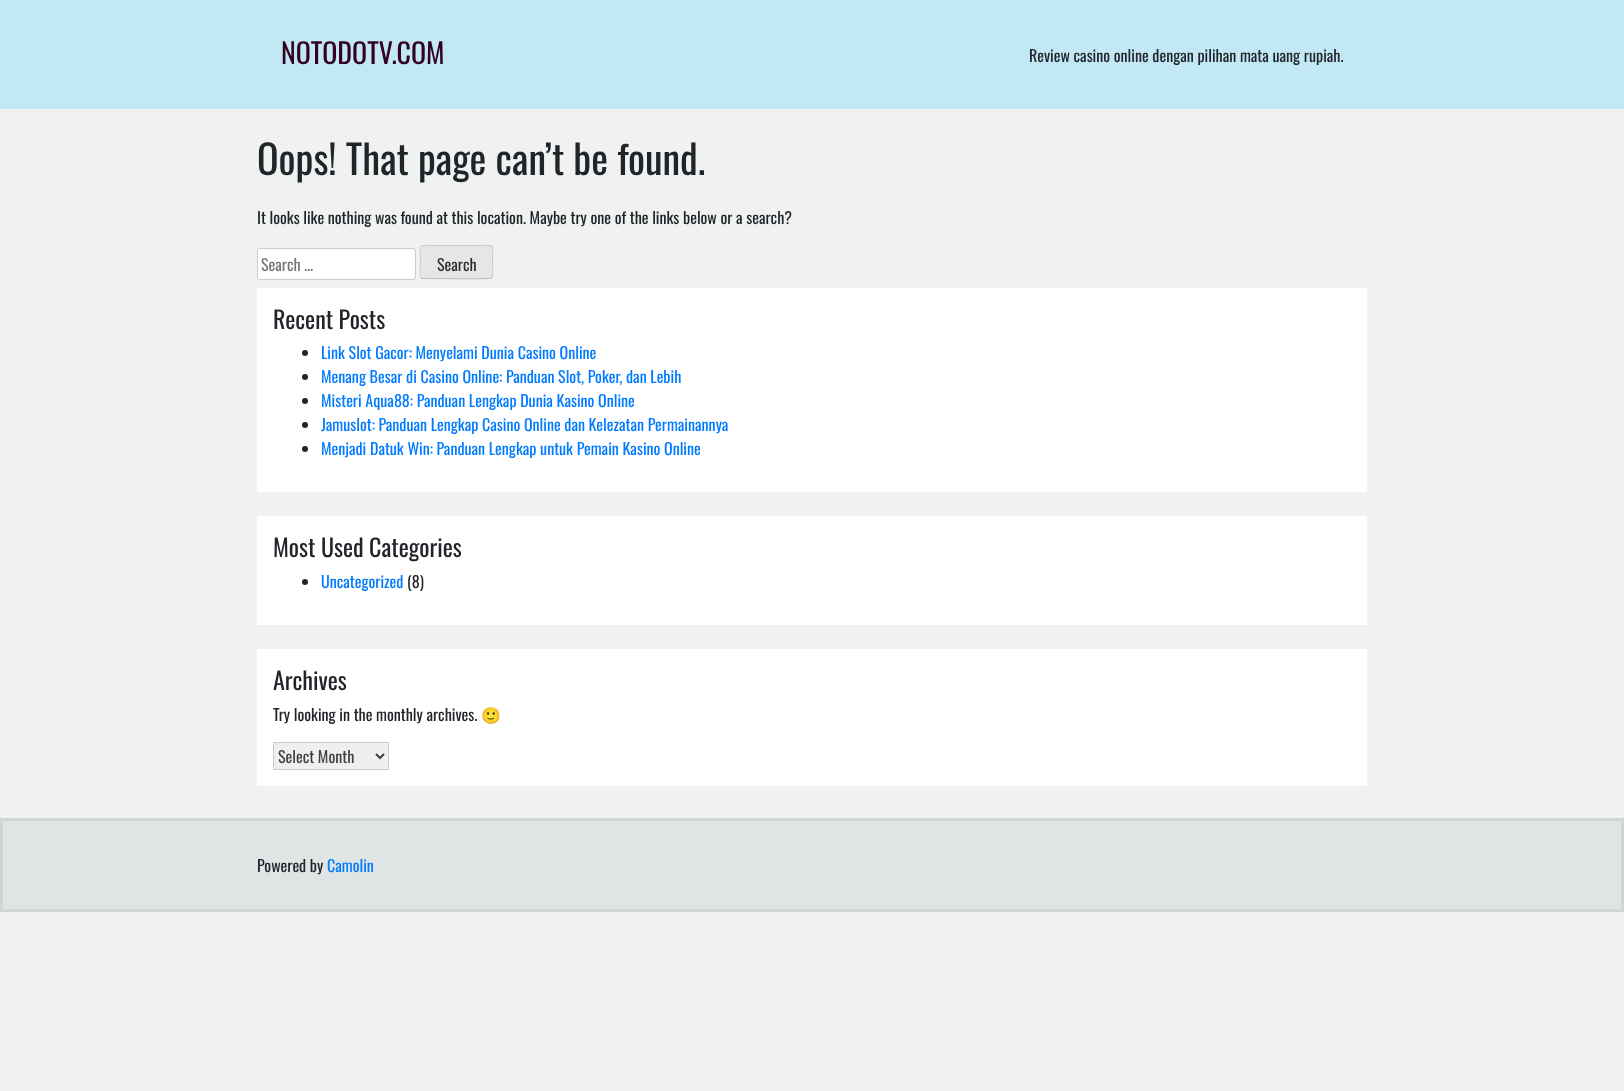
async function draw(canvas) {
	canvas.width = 1624;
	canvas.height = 1091;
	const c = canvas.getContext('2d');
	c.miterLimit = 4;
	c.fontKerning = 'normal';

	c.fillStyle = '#f0f2f2';
	c.fillRect(0, 0, 1624, 1091);
	c.fillStyle = '#c2e8f6';
	c.fillRect(0, 0, 1624, 109);
	c.font = '28px Oswald';
	c.fillStyle = '#32021f';
	c.fillText('NOTODOTV.COM', 281, 64);
	c.font = '16px Oswald';
	c.fillStyle = '#212529';
	c.fillText('Review casino online dengan pilihan mata uang rupiah.', 1029, 62);
	c.font = '40px Oswald';
	c.fillText('Oops! That page can’t be found.', 257, 175);
	c.font = '16px Oswald';
	c.fillText('It looks like nothing was found at this location. Maybe try one of the links below or a search?', 257, 224);
	c.fillStyle = '#fff';
	c.beginPath();
	c.roundRect(257.5, 248.5, 158, 31, 2.5);
	c.fill();
	c.strokeStyle = '#ccc';
	c.stroke();
	c.fillStyle = '#757575';
	c.fillText('Search …', 261, 271);
	c.fillStyle = '#e6e6e6';
	c.beginPath();
	c.roundRect(420, 245, 73, 34, 3);
	c.fill();
	c.beginPath();
	c.moveTo(492, 278);
	c.lineTo(491.5, 278);
	c.bezierCurveTo(489.5, 279.5, 440.5, 278.5, 434, 278.5);
	c.lineTo(423, 278.5);
	c.lineTo(421, 278);
	c.strokeStyle = '#bbb';
	c.stroke();
	c.beginPath();
	c.moveTo(421, 278);
	c.bezierCurveTo(419.5, 276, 420.5, 264.5, 420.5, 262);
	c.bezierCurveTo(420.5, 243.5, 416.5, 245.5, 434, 245.5);
	c.lineTo(479, 245.5);
	c.bezierCurveTo(496.5, 245.5, 492.5, 243.5, 492.5, 262);
	c.bezierCurveTo(492.5, 264.5, 493.5, 276, 492, 278);
	c.strokeStyle = '#ccc';
	c.stroke();
	c.fillStyle = '#2e2e2e';
	c.fillText('Search', 437, 271);
	c.fillStyle = '#fff';
	c.fillRect(257, 288, 1110, 204);
	c.font = '24px Oswald';
	c.fillStyle = '#212529';
	c.fillText('Recent Posts', 273, 329);
	c.beginPath();
	c.arc(305, 353, 3, 0, 2 * Math.PI);
	c.fill();
	c.font = '16px Oswald';
	c.fillStyle = '#007bff';
	c.fillText('Link Slot Gacor: Menyelami Dunia Casino Online', 321, 359);
	c.fillStyle = '#212529';
	c.beginPath();
	c.arc(305, 377, 3, 0, 2 * Math.PI);
	c.fill();
	c.fillStyle = '#007bff';
	c.fillText('Menang Besar di Casino Online: Panduan Slot, Poker, dan Lebih', 321, 383);
	c.fillStyle = '#212529';
	c.beginPath();
	c.arc(305, 401, 3, 0, 2 * Math.PI);
	c.fill();
	c.fillStyle = '#007bff';
	c.fillText('Misteri Aqua88: Panduan Lengkap Dunia Kasino Online', 321, 407);
	c.fillStyle = '#212529';
	c.beginPath();
	c.arc(305, 425, 3, 0, 2 * Math.PI);
	c.fill();
	c.fillStyle = '#007bff';
	c.fillText('Jamuslot: Panduan Lengkap Casino Online dan Kelezatan Permainannya', 321, 431);
	c.fillStyle = '#212529';
	c.beginPath();
	c.arc(305, 449, 3, 0, 2 * Math.PI);
	c.fill();
	c.fillStyle = '#007bff';
	c.fillText('Menjadi Datuk Win: Panduan Lengkap untuk Pemain Kasino Online', 321, 455);
	c.fillStyle = '#fff';
	c.fillRect(257, 516, 1110, 109);
	c.font = '24px Oswald';
	c.fillStyle = '#212529';
	c.fillText('Most Used Categories', 273, 557);
	c.beginPath();
	c.arc(305, 582, 3, 0, 2 * Math.PI);
	c.fill();
	c.font = '16px Oswald';
	c.fillStyle = '#007bff';
	c.fillText('Uncategorized', 321, 588);
	c.fillStyle = '#212529';
	c.fillText('(8)', 407, 588);
	c.fillStyle = '#fff';
	c.fillRect(257, 649, 1110, 137);
	c.font = '24px Oswald';
	c.fillStyle = '#212529';
	c.fillText('Archives', 273, 690);
	c.font = '16px Oswald';
	c.fillText('Try looking in the monthly archives.', 273, 721);
	c.font = '16px Noto Color Emoji';
	c.fillText('🙂', 481, 721);
	c.fillStyle = '#efefef';
	c.beginPath();
	c.rect(273.5, 742.5, 115, 27);
	c.fill();
	c.stroke();
	c.beginPath();
	c.moveTo(376, 754);
	c.lineTo(380, 758);
	c.lineTo(384, 754);
	c.strokeStyle = '#404040';
	c.lineWidth = 2;
	c.stroke();
	c.font = '16px Oswald';
	c.fillStyle = '#404040';
	c.fillText('Select Month', 278, 763);
	c.fillStyle = '#e0e4e4';
	c.beginPath();
	c.rect(1.5, 819.5, 1621, 91);
	c.fill();
	c.strokeStyle = '#cfd6d6';
	c.lineWidth = 3;
	c.stroke();
	c.fillStyle = '#212529';
	c.fillText('Powered by', 257, 872);
	c.fillStyle = '#007bff';
	c.fillText('Camolin', 327, 872);
}

draw(document.querySelector('canvas'));
